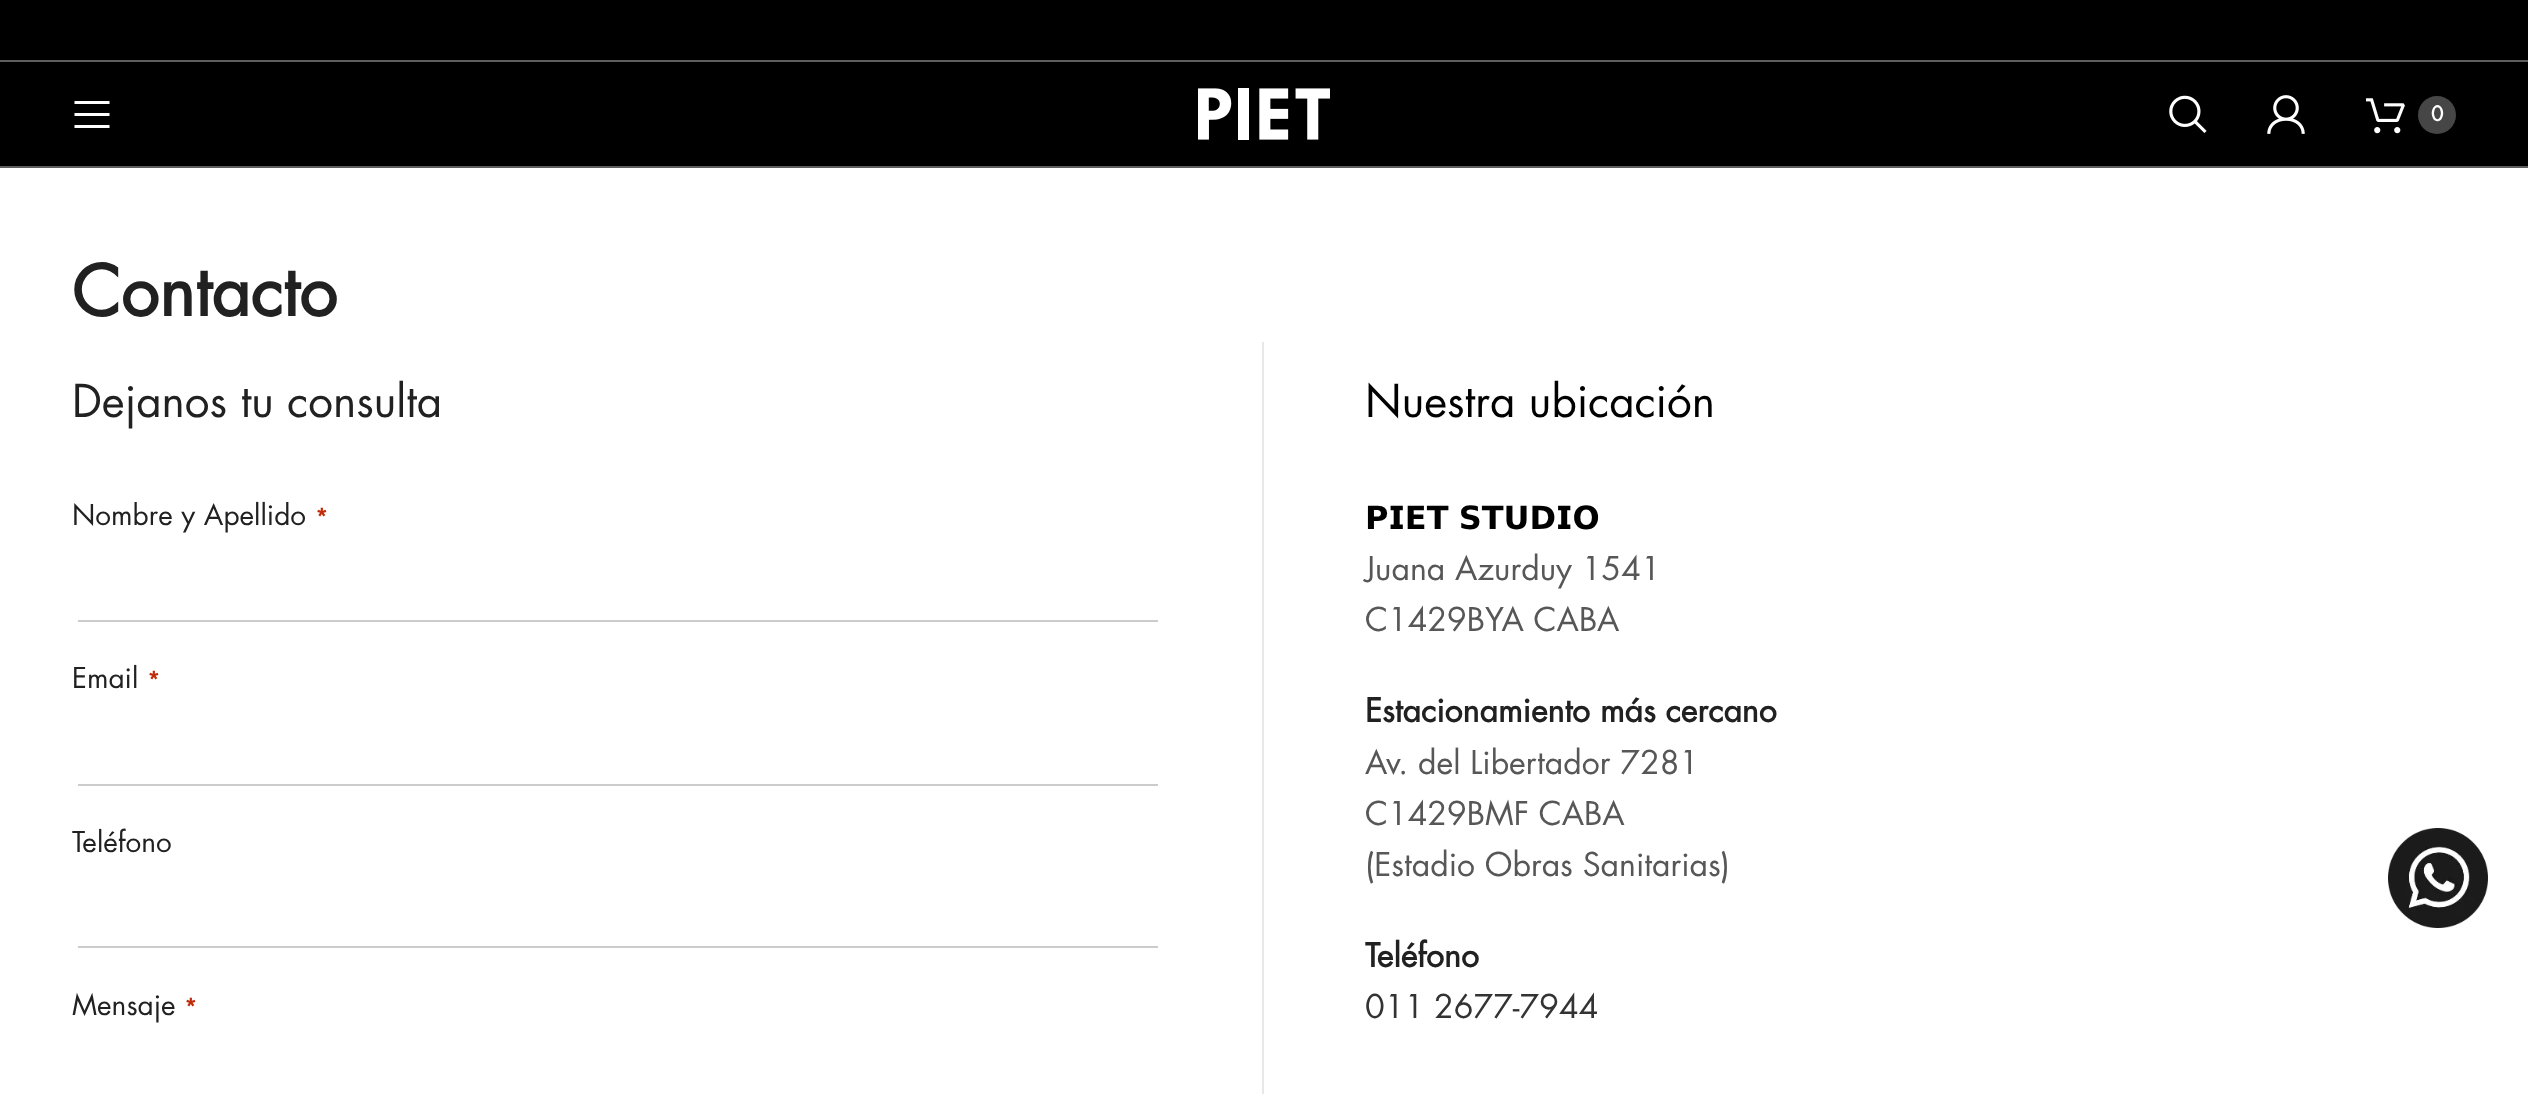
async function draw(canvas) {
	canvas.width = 2528;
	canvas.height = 1094;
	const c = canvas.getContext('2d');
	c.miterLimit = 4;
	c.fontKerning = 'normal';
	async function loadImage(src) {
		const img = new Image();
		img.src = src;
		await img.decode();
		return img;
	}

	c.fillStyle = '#fff';
	c.fillRect(0, 0, 2528, 1094);
	for (const [x, y, w, h, color] of [
		[0, 0, 2528, 60, '#000'],
		[0, 60, 2528, 2, '#5e5e5e'],
		[0, 62, 2528, 104, '#000'],
		[0, 166, 2528, 2, '#5e5e5e'],
	]) {
		c.fillStyle = color;
		c.fillRect(x, y, w, h);
	}
	c.fillStyle = '#fff';
	c.beginPath();
	c.moveTo(74.5, 104);
	c.lineTo(109.5, 104);
	c.lineTo(109.5, 101);
	c.lineTo(74.5, 101);
	c.closePath();
	c.moveTo(74.5, 116);
	c.lineTo(109.5, 116);
	c.lineTo(109.5, 113);
	c.lineTo(74.5, 113);
	c.closePath();
	c.moveTo(74.5, 128);
	c.lineTo(109.5, 128);
	c.lineTo(109.5, 125);
	c.lineTo(74.5, 125);
	c.closePath();
	c.fill();
	c.drawImage(await loadImage('img1.png'), 1198, 88, 132, 52);
	c.drawImage(await loadImage('img2.png'), 2169, 95, 38, 38);
	c.drawImage(await loadImage('img3.png'), 2267, 95, 38, 39);
	c.drawImage(await loadImage('img4.png'), 2366, 98, 39, 36);
	c.fillStyle = '#464646';
	c.beginPath();
	c.arc(2437, 115, 19, 0, 2 * Math.PI);
	c.fill();
	c.font = 'bold 20px Futura';
	c.fillStyle = '#fff';
	c.fillText('0', 2431, 121);
	c.font = 'bold 68px Futura';
	c.fillStyle = '#212121';
	c.fillText('Contacto', 72, 316);
	c.fillStyle = '#e8e8e8';
	c.fillRect(1262, 342, 2, 752);
	c.font = '44px Futura';
	c.fillStyle = '#212121';
	c.fillText('Dejanos tu consulta', 72, 417);
	c.font = '28px Futura';
	c.fillText('Nombre y Apellido', 72, 525);
	c.font = 'bold 22px Futura';
	c.fillStyle = '#c02b0a';
	c.fillText('*', 315, 525);
	c.fillStyle = '#ccc';
	c.fillRect(78, 620, 1080, 2);
	c.font = '28px Futura';
	c.fillStyle = '#212121';
	c.fillText('Email', 72, 688);
	c.font = 'bold 22px Futura';
	c.fillStyle = '#c02b0a';
	c.fillText('*', 147, 688);
	c.fillStyle = '#ccc';
	c.fillRect(78, 784, 1080, 2);
	c.font = '28px Futura';
	c.fillStyle = '#212121';
	c.fillText('Teléfono', 72, 852);
	c.fillStyle = '#ccc';
	c.fillRect(78, 946, 1080, 2);
	c.fillStyle = '#212121';
	c.fillText('Mensaje', 72, 1015);
	c.font = 'bold 22px Futura';
	c.fillStyle = '#c02b0a';
	c.fillText('*', 184, 1015);
	c.font = '44px Futura';
	c.fillStyle = '#000';
	c.fillText('Nuestra ubicación', 1365, 417);
	c.wordSpacing = '-1px';
	c.font = 'bold 32px DejaVu Sans';
	c.fillText('𝗣𝗜𝗘𝗧 𝗦𝗧𝗨𝗗𝗜𝗢', 1365, 529);
	c.wordSpacing = '0px';
	c.font = '32px Futura';
	c.fillStyle = '#575757';
	c.fillText('Juana Azurduy 1541', 1365, 580);
	c.fillText('C1429BYA CABA', 1365, 631);
	c.font = 'bold 32px Futura';
	c.fillStyle = '#212121';
	c.fillText('Estacionamiento más cercano', 1365, 722);
	c.font = '32px Futura';
	c.fillStyle = '#575757';
	for (const [text, x, y] of [
		['Av. del Libertador 7281', 1365, 774],
		['C1429BMF CABA', 1365, 825],
		['(Estadio Obras Sanitarias)', 1365, 876],
	]) {
		c.fillText(text, x, y);
	}
	c.font = 'bold 32px Futura';
	c.fillStyle = '#212121';
	c.fillText('Teléfono', 1365, 967);
	c.font = '32px Futura';
	c.fillStyle = '#333';
	c.fillText('011 2677-7944', 1365, 1018);
	c.drawImage(await loadImage('img5.png'), 2388, 828, 100, 100);
}

draw(document.querySelector('canvas'));
